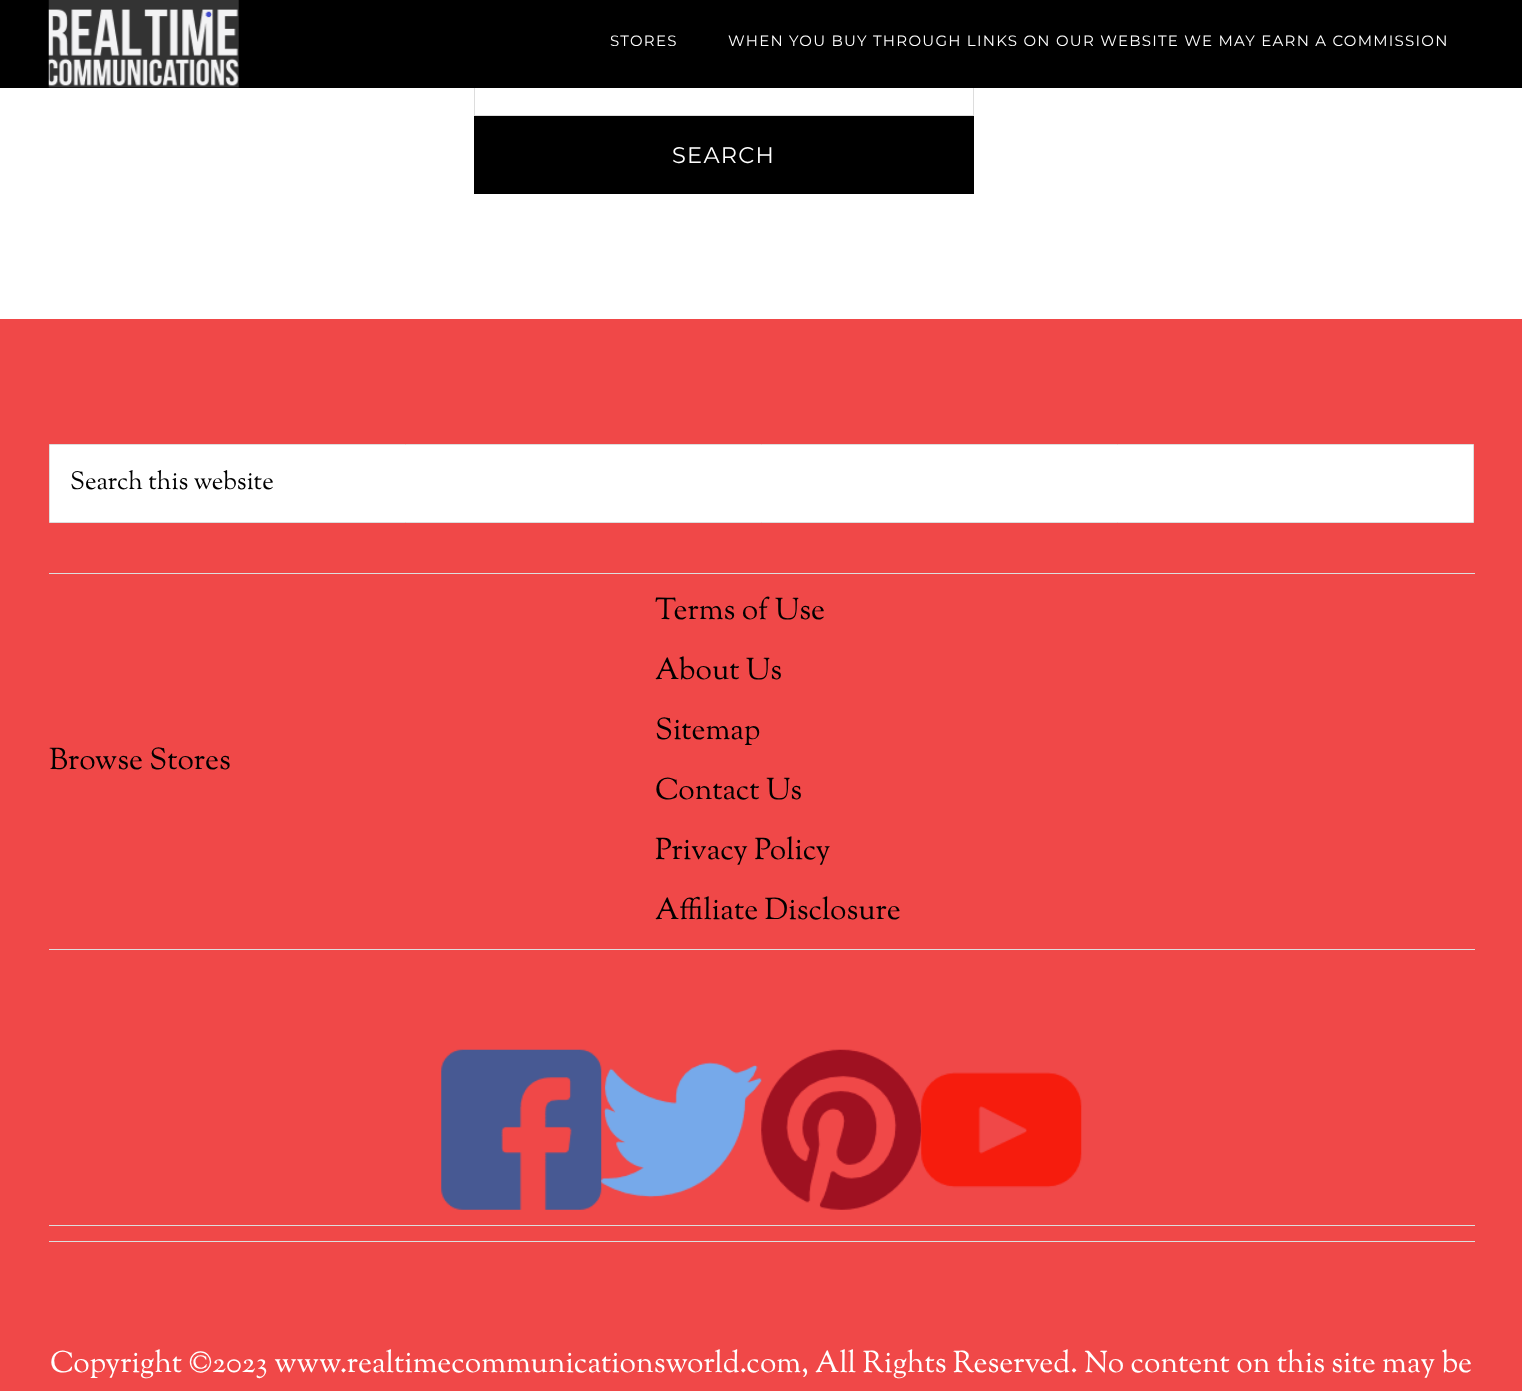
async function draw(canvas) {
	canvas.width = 1522;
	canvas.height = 1391;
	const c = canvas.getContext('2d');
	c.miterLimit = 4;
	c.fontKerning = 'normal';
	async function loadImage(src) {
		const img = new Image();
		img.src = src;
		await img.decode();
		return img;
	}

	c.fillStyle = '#fff';
	c.fillRect(0, 0, 1522, 1391);
	c.strokeStyle = '#ddd';
	c.strokeRect(474.5, 38.5, 499, 77);
	c.fillStyle = '#000';
	c.fillRect(0, 0, 1522, 88);
	c.drawImage(await loadImage('img1.png'), 48, 0, 192, 88);
	c.letterSpacing = '1.25px';
	c.font = '15px Montserrat';
	c.fillStyle = '#fff';
	c.fillText('STORES', 610, 46);
	c.fillText('WHEN YOU BUY THROUGH LINKS ON OUR WEBSITE WE MAY EARN A COMMISSION', 728, 46);
	c.fillStyle = '#000';
	c.fillRect(474, 116, 500, 78);
	c.font = '22.5px Montserrat';
	c.fillStyle = '#fff';
	c.fillText('SEARCH', 672, 163);
	c.fillStyle = '#f04848';
	c.fillRect(0, 319, 1522, 1072);
	c.fillStyle = '#fff';
	c.beginPath();
	c.rect(49.5, 444.5, 1424, 78);
	c.fill();
	c.stroke();
	c.letterSpacing = '0px';
	c.font = '25px Sorts Mill Goudy';
	c.fillStyle = '#000';
	c.fillText('Search this website', 70, 489);
	c.fillStyle = '#ddd';
	c.fillRect(49, 949, 1426, 1);
	c.font = '30px Sorts Mill Goudy';
	c.fillStyle = '#000';
	c.fillText('Browse Stores', 49, 769);
	c.fillStyle = '#ddd';
	c.fillRect(49, 573, 1426, 1);
	c.fillStyle = '#000';
	for (const [text, x, y] of [
		['Terms of Use', 655, 619],
		['About Us', 655, 679],
		['Sitemap', 655, 739],
		['Contact Us', 655, 799],
		['Privacy Policy', 655, 859],
		['Affiliate Disclosure', 655, 919],
	]) {
		c.fillText(text, x, y);
	}
	c.drawImage(await loadImage('img2.png'), 441, 1049, 161, 161);
	c.drawImage(await loadImage('img3.png'), 601, 1062, 161, 136);
	c.drawImage(await loadImage('img4.png'), 761, 1049, 161, 161);
	c.drawImage(await loadImage('img5.png'), 921, 1072, 161, 116);
	c.fillStyle = '#ddd';
	c.fillRect(49, 1241, 1426, 1);
	c.fillRect(49, 1225, 1426, 1);
	c.fillStyle = '#fff';
	c.fillText('Copyright ©2023 www.realtimecommunicationsworld.com, All Rights Reserved. No content on this site may be', 50, 1372);
}

draw(document.querySelector('canvas'));
